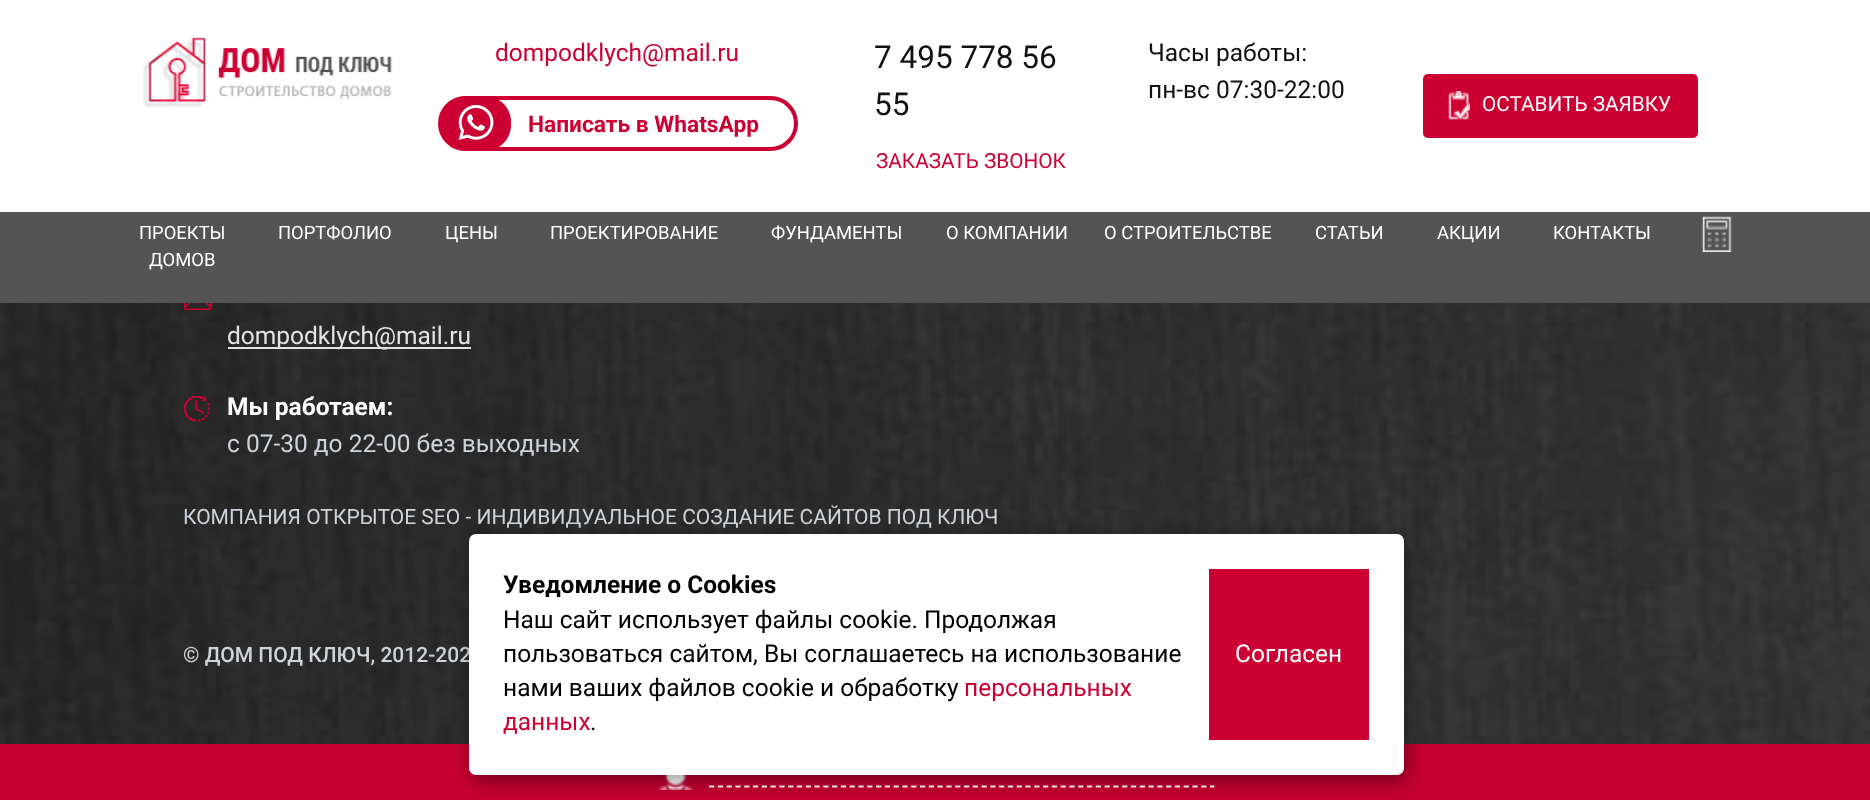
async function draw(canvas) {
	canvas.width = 1870;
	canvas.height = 800;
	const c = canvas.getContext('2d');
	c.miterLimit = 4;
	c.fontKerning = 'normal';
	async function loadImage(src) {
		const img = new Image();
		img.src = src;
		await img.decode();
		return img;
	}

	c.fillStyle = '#fff';
	c.fillRect(0, 0, 1870, 800);
	c.drawImage(await loadImage('img1.png'), 143, 37, 250, 70);
	c.font = '24.5px Roboto';
	c.fillStyle = '#c03';
	c.fillText('dompodklych@mail.ru', 495, 61);
	c.beginPath();
	c.roundRect(440, 98, 356, 51, 25.5);
	c.strokeStyle = '#c03';
	c.lineWidth = 4;
	c.stroke();
	c.drawImage(await loadImage('img2.png'), 442, 96, 69, 55);
	c.font = 'bold 22.75px Roboto';
	c.fillText('Написать в WhatsApp', 528, 132);
	c.font = '31.5px Roboto';
	c.fillStyle = '#111';
	c.fillText('7 495 778 56', 874, 68);
	c.fillText('55', 874, 115);
	c.font = '20.75px Roboto';
	c.fillStyle = '#c03';
	c.fillText('ЗАКАЗАТЬ ЗВОНОК', 876, 168);
	c.font = '24.5px Roboto';
	c.fillStyle = '#111';
	c.fillText('Часы работы:', 1148, 61);
	c.fillText('пн-вс 07:30-22:00', 1148, 98);
	c.fillStyle = '#c03';
	c.beginPath();
	c.roundRect(1424, 75, 273, 62, 4);
	c.fill();
	c.lineWidth = 2;
	c.stroke();
	c.drawImage(await loadImage('img3.png'), 1448, 91, 22, 29);
	c.font = '20.75px Roboto';
	c.fillStyle = '#fff';
	c.fillText('ОСТАВИТЬ ЗАЯВКУ', 1482, 111);
	c.fillStyle = '#545454';
	c.fillRect(0, 212, 1870, 91);
	c.font = '18.4px Roboto';
	c.fillStyle = '#fff';
	for (const [text, x, y] of [
		['ПРОЕКТЫ', 139, 239],
		['ДОМОВ', 149, 266],
		['ПОРТФОЛИО', 278, 239],
		['ЦЕНЫ', 445, 239],
		['ПРОЕКТИРОВАНИЕ', 550, 239],
		['ФУНДАМЕНТЫ', 771, 239],
		['О КОМПАНИИ', 946, 239],
		['О СТРОИТЕЛЬСТВЕ', 1104, 239],
		['СТАТЬИ', 1315, 239],
		['АКЦИИ', 1437, 239],
		['КОНТАКТЫ', 1553, 239],
	]) {
		c.fillText(text, x, y);
	}
	c.drawImage(await loadImage('img4.png'), 1702, 216, 30, 36);
	c.drawImage(await loadImage('img5.png'), 0, 303, 1870, 441);
	c.drawImage(await loadImage('img6.png'), 184, 303, 28, 7);
	c.fillStyle = '#e3e3e3';
	c.fillRect(228, 347, 243, 2);
	c.font = '24.5px Roboto';
	c.fillText('dompodklych@mail.ru', 227, 344);
	c.drawImage(await loadImage('img7.png'), 184, 396, 26, 26);
	c.font = 'bold 24.5px Roboto';
	c.fillStyle = '#fff';
	c.fillText('Мы работаем:', 227, 415);
	c.font = '24.5px Roboto';
	c.fillStyle = '#ced4da';
	c.fillText('с 07-30 до 22-00 без выходных', 227, 452);
	c.font = '21px Roboto';
	c.fillText('КОМПАНИЯ ОТКРЫТОЕ SEO - ИНДИВИДУАЛЬНОЕ СОЗДАНИЕ САЙТОВ ПОД КЛЮЧ', 183, 524);
	c.font = '500 21px Roboto';
	c.fillText('© ДОМ ПОД КЛЮЧ, 2012-202', 183, 662);
	c.fillStyle = '#c50031';
	c.fillRect(0, 744, 1870, 56);
	c.drawImage(await loadImage('img8.png'), 658, 775, 36, 15);
	c.beginPath();
	c.moveTo(709, 786.5);
	c.lineTo(1214.5, 786.5);
	c.strokeStyle = '#fff';
	c.lineWidth = 1.8;
	c.setLineDash([5.25, 3.54]);
	c.stroke();
	c.fillStyle = '#00000066';
	c.filter = 'blur(9px)';
	c.beginPath();
	c.roundRect(473, 539, 934, 242, 7);
	c.fill();
	c.filter = 'none';
	c.fillStyle = '#fff';
	c.beginPath();
	c.roundRect(469, 534, 935, 241, 7);
	c.fill();
	c.font = 'bold 24.5px Roboto';
	c.fillStyle = '#000';
	c.fillText('Уведомление о Cookies', 503, 593);
	c.font = '24.5px Roboto';
	for (const [text, x, y] of [
		['Наш сайт использует файлы cookie. Продолжая', 503, 628],
		['пользоваться сайтом, Вы соглашаетесь на использование', 503, 662],
		['нами ваших файлов cookie и обработку', 503, 696],
	]) {
		c.fillText(text, x, y);
	}
	c.fillStyle = '#c03';
	c.fillText('персональных', 964, 696);
	c.fillText('данных', 503, 730);
	c.fillStyle = '#000';
	c.fillText('.', 590, 730);
	c.fillStyle = '#c03';
	c.fillRect(1209, 569, 160, 171);
	c.fillStyle = '#fff';
	c.fillText('Согласен', 1235, 662);
}

draw(document.querySelector('canvas'));
